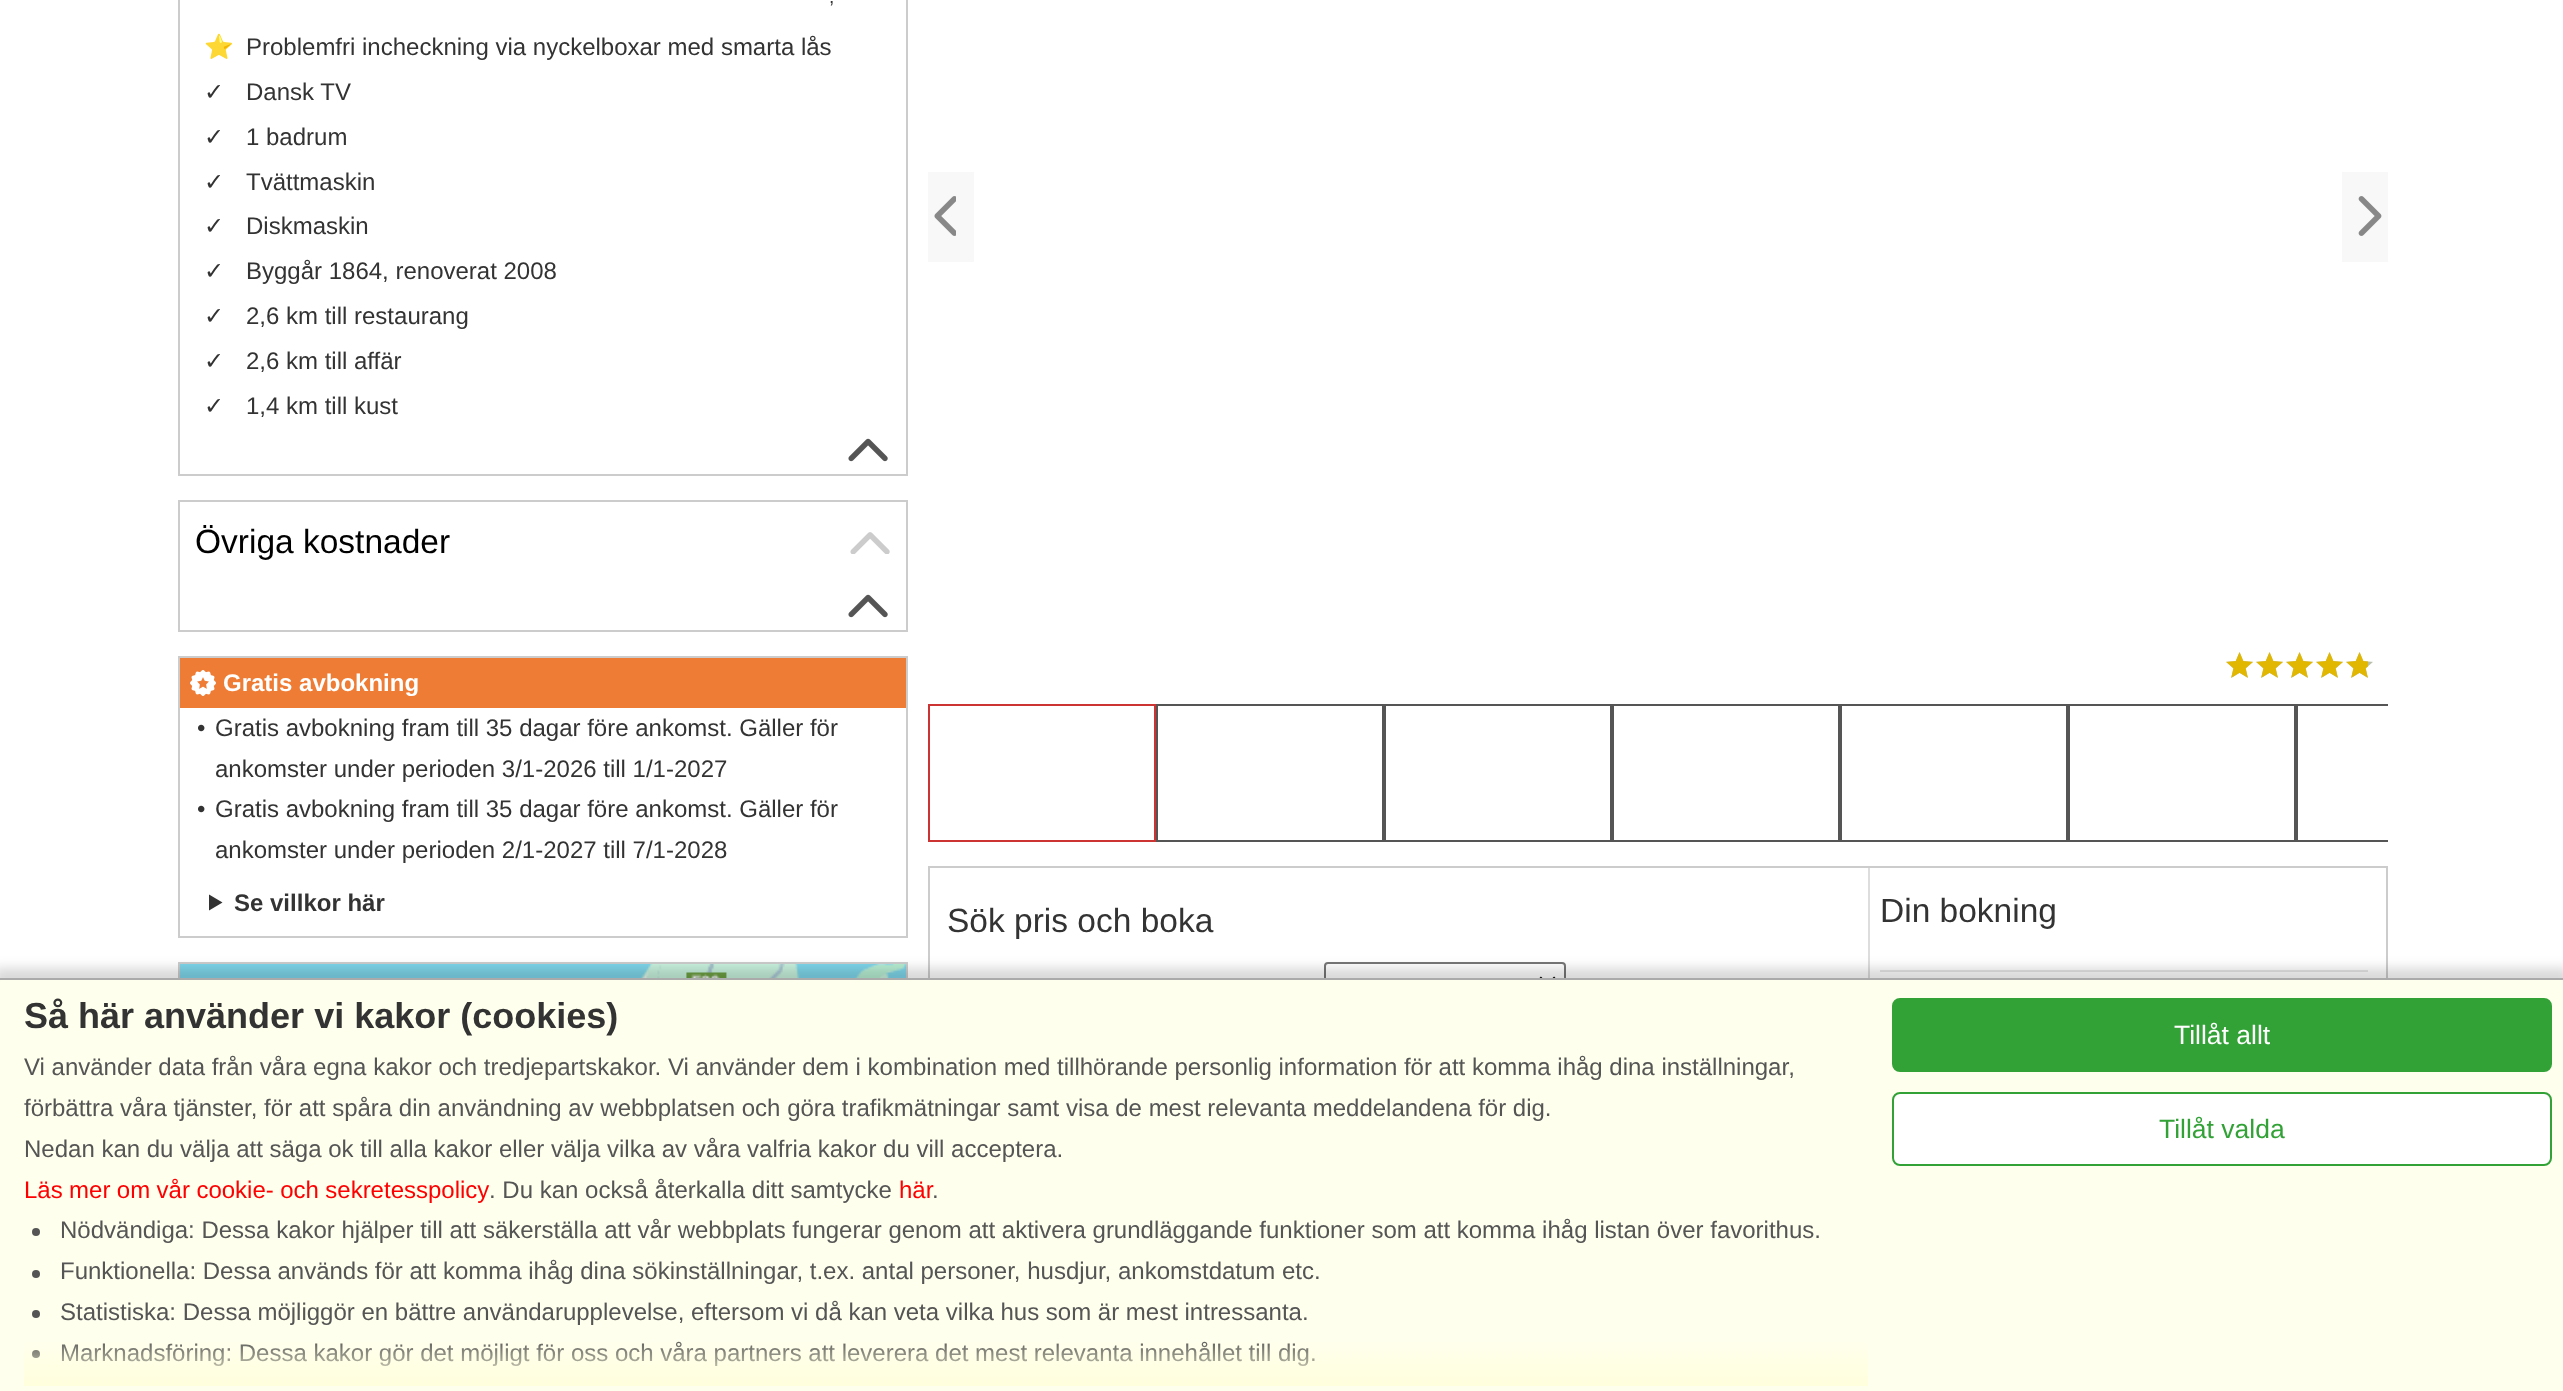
async function draw(canvas) {
	canvas.width = 2563;
	canvas.height = 1391;
	const c = canvas.getContext('2d');
	c.miterLimit = 4;
	c.fontKerning = 'normal';
	async function loadImage(src) {
		const img = new Image();
		img.src = src;
		await img.decode();
		return img;
	}
	let gradient;

	c.fillStyle = '#fff';
	c.fillRect(0, 0, 2563, 1391);
	c.strokeStyle = '#ccc';
	c.lineWidth = 2;
	c.strokeRect(179, -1, 728, 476);
	c.font = '19px Liberation Sans';
	c.fillStyle = '#333';
	c.fillText(',', 829, 3);
	c.font = '24px Noto Color Emoji';
	c.fillText('⭐', 204, 55);
	c.font = '24px Liberation Sans';
	c.fillText('Problemfri incheckning via nyckelboxar med smarta lås', 246, 55);
	c.font = '24px DejaVu Sans';
	c.fillText('✓', 204, 100);
	c.font = '24px Liberation Sans';
	c.fillText('Dansk TV', 246, 100);
	c.font = '24px DejaVu Sans';
	c.fillText('✓', 204, 145);
	c.font = '24px Liberation Sans';
	c.fillText('1 badrum', 246, 145);
	c.font = '24px DejaVu Sans';
	c.fillText('✓', 204, 190);
	c.font = '24px Liberation Sans';
	c.fillText('Tvättmaskin', 246, 190);
	c.font = '24px DejaVu Sans';
	c.fillText('✓', 204, 234);
	c.font = '24px Liberation Sans';
	c.fillText('Diskmaskin', 246, 234);
	c.font = '24px DejaVu Sans';
	c.fillText('✓', 204, 279);
	c.font = '24px Liberation Sans';
	c.fillText('Byggår 1864, renoverat 2008', 246, 279);
	c.font = '24px DejaVu Sans';
	c.fillText('✓', 204, 324);
	c.font = '24px Liberation Sans';
	c.fillText('2,6 km till restaurang', 246, 324);
	c.font = '24px DejaVu Sans';
	c.fillText('✓', 204, 369);
	c.font = '24px Liberation Sans';
	c.fillText('2,6 km till affär', 246, 369);
	c.font = '24px DejaVu Sans';
	c.fillText('✓', 204, 414);
	c.font = '24px Liberation Sans';
	c.fillText('1,4 km till kust', 246, 414);
	c.drawImage(await loadImage('img1.png'), 848, 438, 40, 24);
	c.strokeRect(179, 501, 728, 130);
	c.font = '33.5px Liberation Sans';
	c.fillStyle = '#000';
	c.fillText('Övriga kostnader', 195, 553);
	c.drawImage(await loadImage('img2.png'), 850, 532, 40, 22);
	c.drawImage(await loadImage('img1.png'), 848, 594, 40, 24);
	c.strokeRect(179, 657, 728, 280);
	c.fillStyle = '#ef7c34';
	c.fillRect(180, 658, 726, 50);
	c.drawImage(await loadImage('img3.png'), 190, 670, 26, 26);
	c.font = 'bold 24px Liberation Sans';
	c.fillStyle = '#fff';
	c.fillText('Gratis avbokning', 223, 691);
	c.font = '24px Liberation Sans';
	c.fillStyle = '#333';
	for (const [text, x, y] of [
		['•', 197, 736],
		['Gratis avbokning fram till 35 dagar före ankomst. Gäller för', 215, 736],
		['ankomster under perioden 3/1-2026 till 1/1-2027', 215, 777],
		['•', 197, 817],
		['Gratis avbokning fram till 35 dagar före ankomst. Gäller för', 215, 817],
		['ankomster under perioden 2/1-2027 till 7/1-2028', 215, 858],
	]) {
		c.fillText(text, x, y);
	}
	c.beginPath();
	c.moveTo(209, 894.5);
	c.lineTo(222.5, 902.5);
	c.lineTo(209, 910.5);
	c.closePath();
	c.fill();
	c.font = 'bold 24px Liberation Sans';
	c.fillText('Se villkor här', 234, 911);
	c.strokeRect(179, 963, 728, 382);
	c.drawImage(await loadImage('img4.png'), 180, 964, 726, 14);
	c.fillStyle = '#f8f8f8';
	c.fillRect(928, 172, 46, 90);
	c.drawImage(await loadImage('img5.png'), 934, 196, 22, 40);
	c.fillRect(2342, 172, 46, 90);
	c.drawImage(await loadImage('img6.png'), 2358, 196, 24, 40);
	c.drawImage(await loadImage('img7.png'), 2226, 652, 147, 26);
	c.drawImage(await loadImage('img8.png'), 2226, 652, 142, 26);
	c.strokeStyle = '#c33';
	c.strokeRect(929, 705, 226, 136);
	c.strokeStyle = '#555';
	c.strokeRect(1157, 705, 226, 136);
	c.strokeRect(1385, 705, 226, 136);
	c.strokeRect(1613, 705, 226, 136);
	c.strokeRect(1841, 705, 226, 136);
	c.strokeRect(2069, 705, 226, 136);
	c.save();
	c.beginPath();
	c.rect(928, 704, 1460, 138);
	c.clip();
	c.strokeRect(2297, 705, 226, 136);
	c.restore();
	c.strokeStyle = '#ccc';
	c.strokeRect(929, 867, 1458, 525);
	c.fillStyle = '#ddd';
	c.fillRect(1868, 868, 2, 110);
	c.font = '33.5px Liberation Sans';
	c.fillStyle = '#333';
	c.fillText('Sök pris och boka', 947, 932);
	c.beginPath();
	c.roundRect(1325, 963, 240, 36, 3);
	c.strokeStyle = '#767676';
	c.stroke();
	c.beginPath();
	c.moveTo(1539.5, 978);
	c.lineTo(1547.5, 986);
	c.lineTo(1555.5, 978);
	c.strokeStyle = '#000';
	c.lineWidth = 4;
	c.stroke();
	c.fillText('Din bokning', 1880, 922);
	c.fillStyle = '#e6e6e6';
	c.fillRect(1880, 970, 488, 2);
	c.fillStyle = '#00000026';
	c.filter = 'blur(6px)';
	c.beginPath();
	c.rect(-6, 968, 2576, 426);
	c.fill();
	c.filter = 'none';
	c.fillStyle = '#ffe';
	c.fillRect(0, 980, 2563, 411);
	c.fillStyle = '#aaa';
	c.fillRect(0, 978, 2563, 2);
	c.font = 'bold 36px Liberation Sans';
	c.fillStyle = '#333';
	c.fillText('Så här använder vi kakor (cookies)', 24, 1028);
	c.font = '24px Liberation Sans';
	c.fillStyle = '#555';
	for (const [text, x, y] of [
		['Vi använder data från våra egna kakor och tredjepartskakor. Vi använder dem i kombination med tillhörande personlig information för att komma ihåg dina inställningar,', 24, 1075],
		['förbättra våra tjänster, för att spåra din användning av webbplatsen och göra trafikmätningar samt visa de mest relevanta meddelandena för dig.', 24, 1116],
		['Nedan kan du välja att säga ok till alla kakor eller välja vilka av våra valfria kakor du vill acceptera.', 24, 1157],
	]) {
		c.fillText(text, x, y);
	}
	c.wordSpacing = '-0.25px';
	c.fillStyle = '#f00';
	c.fillText('Läs mer om vår cookie- och sekretesspolicy', 24, 1198);
	c.wordSpacing = '0px';
	c.fillStyle = '#555';
	c.fillText('. Du kan också återkalla ditt samtycke', 489, 1198);
	c.fillStyle = '#f00';
	c.fillText('här', 899, 1198);
	c.fillStyle = '#555';
	c.fillText('.', 932, 1198);
	c.beginPath();
	c.arc(36, 1232, 4, 0, 2 * Math.PI);
	c.fill();
	c.fillText('Nödvändiga: Dessa kakor hjälper till att säkerställa att vår webbplats fungerar genom att aktivera grundläggande funktioner som att komma ihåg listan över favorithus.', 60, 1238);
	c.beginPath();
	c.arc(36, 1274, 4, 0, 2 * Math.PI);
	c.fill();
	c.fillText('Funktionella: Dessa används för att komma ihåg dina sökinställningar, t.ex. antal personer, husdjur, ankomstdatum etc.', 60, 1279);
	c.beginPath();
	c.arc(36, 1314, 4, 0, 2 * Math.PI);
	c.fill();
	c.fillText('Statistiska: Dessa möjliggör en bättre användarupplevelse, eftersom vi då kan veta vilka hus som är mest intressanta.', 60, 1320);
	c.beginPath();
	c.arc(36, 1354, 4, 0, 2 * Math.PI);
	c.fill();
	c.fillText('Marknadsföring: Dessa kakor gör det möjligt för oss och våra partners att leverera det mest relevanta innehållet till dig.', 60, 1361);
	gradient = c.createLinearGradient(946, 1386, 946, 1338);
	gradient.addColorStop(0, '#ffd');
	gradient.addColorStop(1, '#ffffdd00');
	c.fillStyle = gradient;
	c.fillRect(24, 1341, 1844, 45);
	c.fillStyle = '#32a237';
	c.beginPath();
	c.roundRect(1893, 999, 658, 72, 7);
	c.fill();
	c.strokeStyle = '#32a237';
	c.lineWidth = 2;
	c.stroke();
	c.font = '26.5px Liberation Sans';
	c.fillStyle = '#fff';
	c.fillText('Tillåt allt', 2174, 1044);
	c.beginPath();
	c.roundRect(1893, 1093, 658, 72, 7);
	c.fill();
	c.stroke();
	c.fillStyle = '#32a237';
	c.fillText('Tillåt valda', 2159, 1138);
}

draw(document.querySelector('canvas'));
